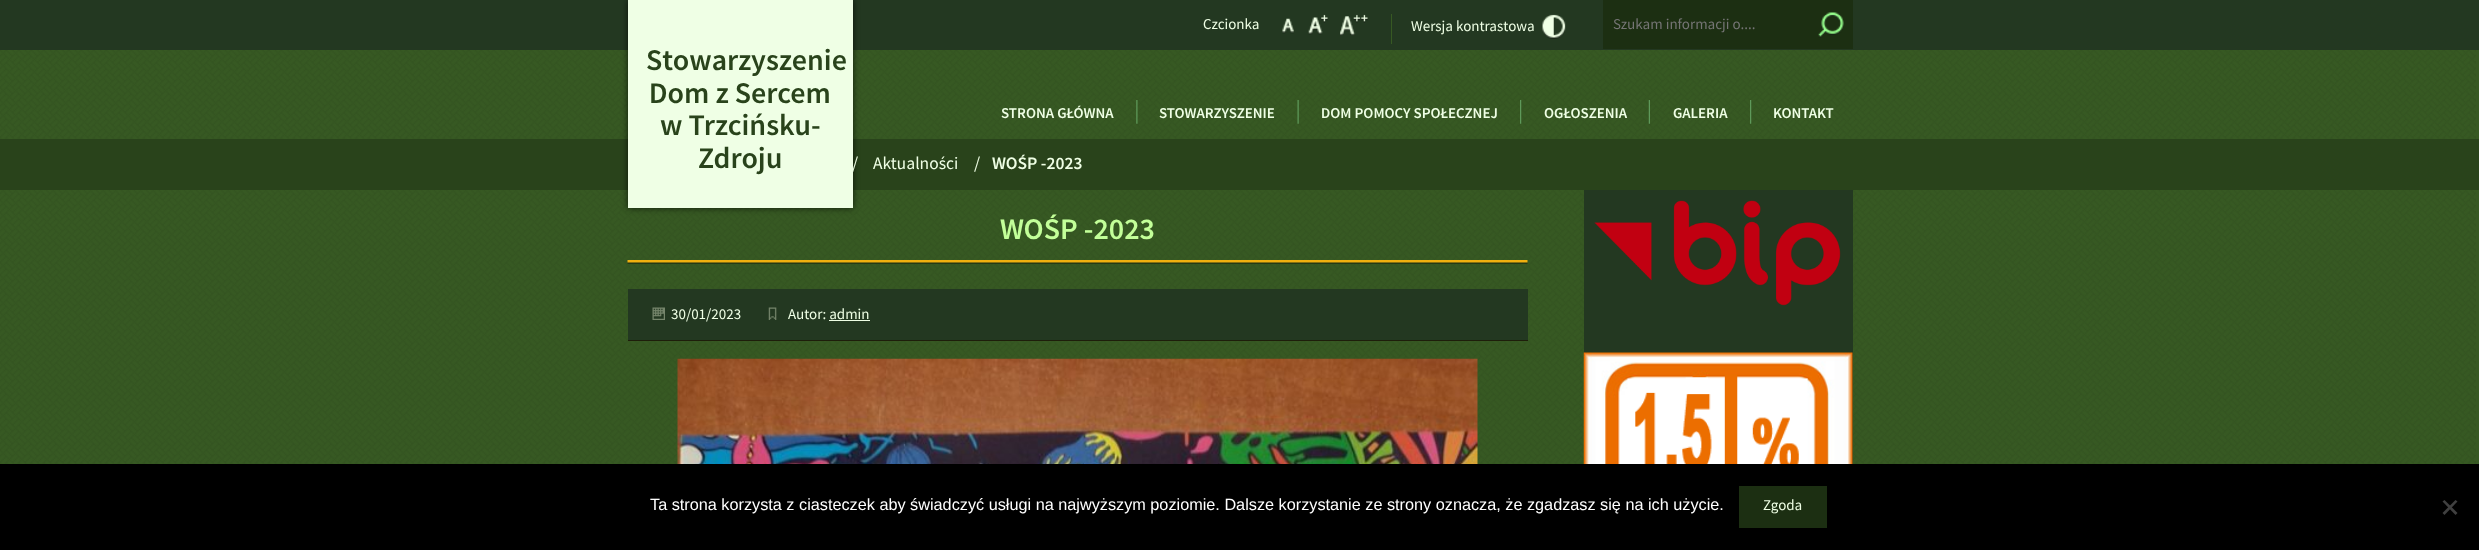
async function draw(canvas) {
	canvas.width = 2479;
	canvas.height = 550;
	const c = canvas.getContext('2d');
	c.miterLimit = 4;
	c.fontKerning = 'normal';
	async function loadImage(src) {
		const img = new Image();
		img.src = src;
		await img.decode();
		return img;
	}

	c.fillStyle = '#375923';
	c.fillRect(0, 0, 2479, 550);
	c.drawImage(await loadImage('img1.png'), 0, 50, 2476, 414);
	c.fillStyle = '#233821';
	c.fillRect(0, 0, 2479, 50);
	c.fillStyle = '#375923';
	c.fillRect(1391, 14, 1, 30);
	c.font = '15px Source Sans Pro';
	c.fillStyle = '#efffe5';
	c.fillText('Czcionka', 1203, 29);
	c.drawImage(await loadImage('img2.png'), 1282, 18, 12, 16);
	c.drawImage(await loadImage('img3.png'), 1308, 14, 20, 21);
	c.drawImage(await loadImage('img4.png'), 1340, 14, 28, 22);
	c.fillText('Wersja kontrastowa', 1411, 31);
	c.drawImage(await loadImage('img5.png'), 1542, 14, 24, 25);
	c.fillStyle = '#1c2f12';
	c.fillRect(1603, 0, 250, 49);
	c.fillStyle = '#757575';
	c.fillText('Szukam informacji o....', 1613, 29);
	c.drawImage(await loadImage('img6.png'), 1818, 12, 26, 26);
	c.fillStyle = '#29431b';
	c.fillRect(0, 139, 2479, 51);
	c.fillStyle = '#000000b3';
	c.filter = 'blur(3px)';
	c.beginPath();
	c.rect(628, 0, 225, 208);
	c.fill();
	c.filter = 'none';
	c.fillStyle = '#efffe5';
	c.fillRect(628, 0, 225, 208);
	c.font = '600 30px Source Sans Pro';
	c.fillStyle = '#29431b';
	for (const [text, x, y] of [
		['Stowarzyszenie', 646, 70],
		['Dom z Sercem', 649, 103],
		['w Trzcińsku-', 660, 135],
		['Zdroju', 698, 168],
	]) {
		c.fillText(text, x, y);
	}
	c.drawImage(await loadImage('img7.png'), 1136, 100, 2, 24);
	c.font = '600 15px Source Sans Pro';
	c.fillStyle = '#efffe5';
	c.fillText('STRONA GŁÓWNA', 1001, 118);
	c.drawImage(await loadImage('img8.png'), 1297, 100, 2, 24);
	c.fillText('STOWARZYSZENIE', 1159, 118);
	c.drawImage(await loadImage('img9.png'), 1520, 100, 2, 24);
	c.fillText('DOM POMOCY SPOŁECZNEJ', 1321, 118);
	c.drawImage(await loadImage('img10.png'), 1648, 100, 2, 24);
	c.fillText('OGŁOSZENIA', 1544, 118);
	c.drawImage(await loadImage('img11.png'), 1750, 100, 2, 24);
	c.fillText('GALERIA', 1673, 118);
	c.fillText('KONTAKT', 1773, 118);
	c.font = '17.5px Source Sans Pro';
	for (const [text, x, y] of [
		['/', 852, 169],
		['Aktualności', 873, 169],
		['/', 974, 169],
	]) {
		c.fillText(text, x, y);
	}
	c.font = '600 17.5px Source Sans Pro';
	c.fillText('WOŚP -2023', 992, 169);
	c.drawImage(await loadImage('img12.png'), 627, 260, 901, 4);
	c.font = '600 30px Source Sans Pro';
	c.fillStyle = '#c3ff99';
	c.fillText('WOŚP -2023', 1000, 239);
	c.fillStyle = '#233821';
	c.fillRect(628, 289, 900, 51);
	c.fillStyle = '#1e1e0a';
	c.fillRect(628, 340, 900, 1);
	c.drawImage(await loadImage('img13.png'), 652, 307, 13, 13);
	c.font = '15px Source Sans Pro';
	c.fillStyle = '#efffe5';
	c.fillText('30/01/2023', 671, 319);
	c.drawImage(await loadImage('img14.png'), 768, 307, 9, 13);
	c.fillText('Autor: admin', 788, 319);
	c.fillRect(829, 320, 41, 1);
	c.drawImage(await loadImage('img15.png'), 677, 358, 801, 106);
	c.fillStyle = '#233821';
	c.fillRect(1584, 190, 269, 163);
	c.drawImage(await loadImage('img16.png'), 1594, 200, 247, 106);
	c.fillRect(1852, 353, 1, 111);
	c.drawImage(await loadImage('img17.png'), 1583, 352, 270, 112);
	c.fillStyle = '#000';
	c.fillRect(0, 464, 2479, 86);
	c.font = '16.25px Liberation Sans';
	c.fillStyle = '#fff';
	c.fillText('Ta strona korzysta z ciasteczek aby świadczyć usługi na najwyższym poziomie. Dalsze korzystanie ze strony oznacza, że zgadzasz się na ich użycie.', 650, 510);
	c.fillStyle = '#1c2f12';
	c.fillRect(1739, 486, 88, 42);
	c.font = '15px Source Sans Pro';
	c.fillStyle = '#efffe5';
	c.fillText('Zgoda', 1763, 510);
	c.fillStyle = '#404040';
	c.beginPath();
	c.moveTo(2455.5, 500);
	c.lineTo(2457.5, 501.5);
	c.lineTo(2444.5, 515);
	c.lineTo(2442.5, 513);
	c.closePath();
	c.fill();
	c.beginPath();
	c.moveTo(2442.5, 501.5);
	c.lineTo(2444.5, 500);
	c.lineTo(2457.5, 513);
	c.lineTo(2455.5, 515);
	c.closePath();
	c.fill();
}

draw(document.querySelector('canvas'));
